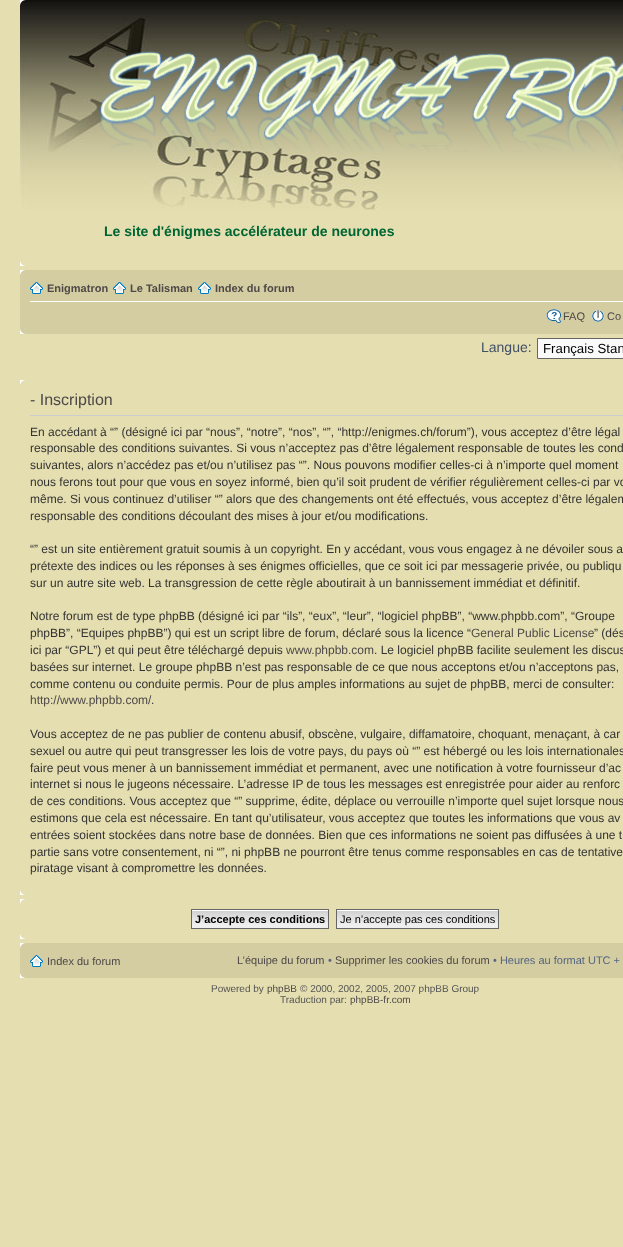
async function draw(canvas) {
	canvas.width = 623;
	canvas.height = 1247;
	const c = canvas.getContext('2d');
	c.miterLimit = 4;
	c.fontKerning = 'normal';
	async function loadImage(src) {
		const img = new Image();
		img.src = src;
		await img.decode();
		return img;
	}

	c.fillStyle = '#e5deb0';
	c.fillRect(0, 0, 623, 1247);
	c.drawImage(await loadImage('img1.png'), 20, 0, 603, 210);
	c.drawImage(await loadImage('img2.png'), 20, 0, 6, 5);
	c.drawImage(await loadImage('img3.png'), 99, 51, 524, 101);
	c.font = 'bold 14px Liberation Sans';
	c.fillStyle = '#063';
	c.fillText('Le site d\'énigmes accélérateur de neurones', 104, 236);
	c.drawImage(await loadImage('img4.png'), 20, 261, 5, 5);
	c.fillStyle = '#d4cda1';
	c.fillRect(20, 270, 603, 64);
	c.drawImage(await loadImage('img5.png'), 20, 270, 5, 5);
	c.fillStyle = '#fff';
	c.fillRect(30, 301, 593, 1);
	c.drawImage(await loadImage('img6.png'), 30, 282, 13, 12);
	c.font = 'bold 11px Liberation Sans';
	c.fillStyle = '#4e4848';
	c.fillText('Enigmatron', 47, 292);
	c.drawImage(await loadImage('img6.png'), 113, 282, 13, 12);
	c.fillText('Le Talisman', 130, 292);
	c.drawImage(await loadImage('img6.png'), 198, 282, 13, 12);
	c.fillText('Index du forum', 215, 292);
	c.drawImage(await loadImage('img7.png'), 546, 309, 16, 14);
	c.font = '11px Liberation Sans';
	c.fillText('FAQ', 563, 320);
	c.drawImage(await loadImage('img8.png'), 592, 310, 12, 12);
	c.fillText('Co', 607, 320);
	c.drawImage(await loadImage('img9.png'), 20, 329, 5, 5);
	c.font = '14px Liberation Sans';
	c.fillStyle = '#425067';
	c.fillText('Langue:', 481, 352);
	c.fillStyle = '#fafafa';
	c.beginPath();
	c.rect(537.5, 338.5, 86, 20);
	c.fill();
	c.strokeStyle = '#666';
	c.stroke();
	c.font = '13.25px Liberation Sans';
	c.fillStyle = '#000';
	c.fillText('Français Stan', 543, 353);
	c.drawImage(await loadImage('img10.png'), 20, 380, 5, 5);
	c.fillStyle = '#ccc';
	c.fillRect(30, 415, 593, 1);
	c.font = '16px Liberation Sans';
	c.fillStyle = '#4e4848';
	c.fillText('- Inscription', 30, 405);
	c.font = '12px Liberation Sans';
	c.fillStyle = '#333';
	for (const [text, x, y] of [
		['En accédant à “” (désigné ici par “nous”, “notre”, “nos”, “”, “http://enigmes.ch/forum”), vous acceptez d’être légal', 30, 436],
		['responsable des conditions suivantes. Si vous n’acceptez pas d’être légalement responsable de toutes les cond', 30, 452],
		['suivantes, alors n’accédez pas et/ou n’utilisez pas “”. Nous pouvons modifier celles-ci à n’importe quel moment', 30, 469],
		['nous ferons tout pour que vous en soyez informé, bien qu’il soit prudent de vérifier régulièrement celles-ci par vo', 30, 486],
		['même. Si vous continuez d’utiliser “” alors que des changements ont été effectués, vous acceptez d’être légalem', 30, 503],
		['responsable des conditions découlant des mises à jour et/ou modifications.', 30, 520],
		['“” est un site entièrement gratuit soumis à un copyright. En y accédant, vous vous engagez à ne dévoiler sous a', 30, 553],
		['prétexte des indices ou les réponses à ses énigmes officielles, que ce soit ici par messagerie privée, ou publiqu', 30, 570],
		['sur un autre site web. La transgression de cette règle aboutirait à un bannissement immédiat et définitif.', 30, 587],
		['Notre forum est de type phpBB (désigné ici par “ils”, “eux”, “leur”, “logiciel phpBB”, “www.phpbb.com”, “Groupe', 30, 620],
		['phpBB”, “Equipes phpBB”) qui est un script libre de forum, déclaré sous la licence “', 30, 637],
	]) {
		c.fillText(text, x, y);
	}
	c.fillStyle = '#4e4848';
	c.fillText('General Public License', 471, 637);
	c.fillStyle = '#333';
	c.fillText('” (dés', 594, 637);
	c.fillText('ici par “GPL”) et qui peut être téléchargé depuis', 30, 654);
	c.fillStyle = '#4e4848';
	c.fillText('www.phpbb.com', 286, 654);
	c.fillStyle = '#333';
	for (const [text, x, y] of [
		['. Le logiciel phpBB facilite seulement les discus', 374, 654],
		['basées sur internet. Le groupe phpBB n’est pas responsable de ce que nous acceptons et/ou n’acceptons pas,', 30, 671],
		['comme contenu ou conduite permis. Pour de plus amples informations au sujet de phpBB, merci de consulter:', 30, 688],
	]) {
		c.fillText(text, x, y);
	}
	c.fillStyle = '#4e4848';
	c.fillText('http://www.phpbb.com/', 30, 704);
	c.fillStyle = '#333';
	for (const [text, x, y] of [
		['.', 151, 704],
		['Vous acceptez de ne pas publier de contenu abusif, obscène, vulgaire, diffamatoire, choquant, menaçant, à car', 30, 738],
		['sexuel ou autre qui peut transgresser les lois de votre pays, du pays où “” est hébergé ou les lois internationales', 30, 755],
		['faire peut vous mener à un bannissement immédiat et permanent, avec une notification à votre fournisseur d’ac', 30, 772],
		['internet si nous le jugeons nécessaire. L’adresse IP de tous les messages est enregistrée pour aider au renforc', 30, 788],
		['de ces conditions. Vous acceptez que “” supprime, édite, déplace ou verrouille n’importe quel sujet lorsque nous', 30, 805],
		['estimons que cela est nécessaire. En tant qu’utilisateur, vous acceptez que toutes les informations que vous av', 30, 822],
		['entrées soient stockées dans notre base de données. Bien que ces informations ne soient pas diffusées à une t', 30, 839],
		['partie sans votre consentement, ni “”, ni phpBB ne pourront être tenus comme responsables en cas de tentative', 30, 856],
		['piratage visant à compromettre les données.', 30, 872],
	]) {
		c.fillText(text, x, y);
	}
	c.drawImage(await loadImage('img4.png'), 20, 890, 5, 5);
	c.drawImage(await loadImage('img10.png'), 20, 899, 5, 5);
	c.drawImage(await loadImage('img11.png'), 192, 910, 136, 18);
	c.strokeRect(191.5, 909.5, 137, 19);
	c.font = 'bold 11px Liberation Sans';
	c.fillStyle = '#000';
	c.fillText('J’accepte ces conditions', 195, 923);
	c.drawImage(await loadImage('img12.png'), 337, 910, 161, 18);
	c.strokeRect(336.5, 909.5, 162, 19);
	c.font = '11px Liberation Sans';
	c.fillText('Je n’accepte pas ces conditions', 340, 923);
	c.drawImage(await loadImage('img4.png'), 20, 934, 5, 5);
	c.fillStyle = '#d4cda1';
	c.fillRect(20, 943, 603, 35);
	c.drawImage(await loadImage('img5.png'), 20, 943, 5, 5);
	c.drawImage(await loadImage('img6.png'), 30, 955, 13, 12);
	c.fillStyle = '#4e4848';
	c.fillText('Index du forum', 47, 965);
	c.fillText('L’équipe du forum', 237, 964);
	c.fillStyle = '#536482';
	c.fillText('•', 328, 964);
	c.fillStyle = '#4e4848';
	c.fillText('Supprimer les cookies du forum', 335, 964);
	c.fillStyle = '#536482';
	c.fillText('• Heures au format UTC +', 493, 964);
	c.drawImage(await loadImage('img9.png'), 20, 973, 5, 5);
	c.font = '10px Liberation Sans';
	c.fillStyle = '#555';
	c.fillText('Powered by', 211, 992);
	c.fillStyle = '#4e4848';
	c.fillText('phpBB', 267, 992);
	c.fillStyle = '#555';
	c.fillText('© 2000, 2002, 2005, 2007 phpBB Group', 300, 992);
	c.fillText('Traduction par:', 280, 1003);
	c.fillStyle = '#4e4848';
	c.fillText('phpBB-fr.com', 350, 1003);
}

draw(document.querySelector('canvas'));
